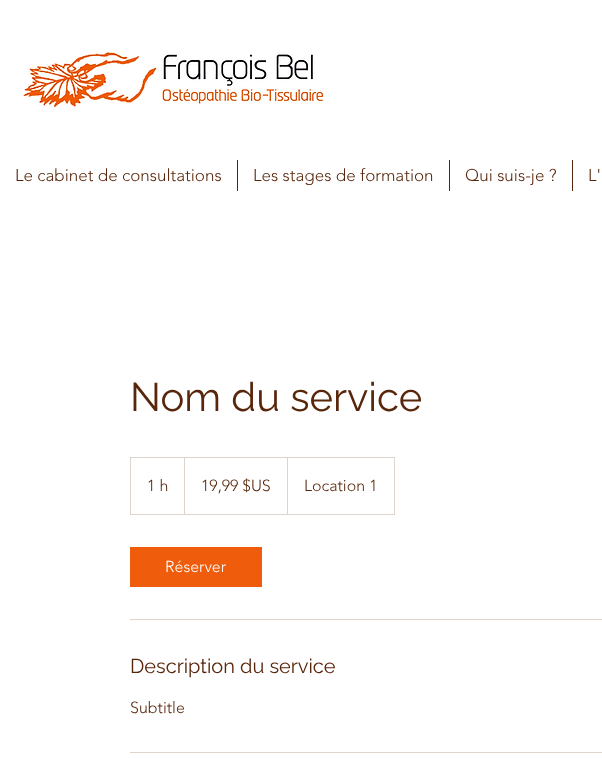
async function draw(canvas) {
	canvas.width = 602;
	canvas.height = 758;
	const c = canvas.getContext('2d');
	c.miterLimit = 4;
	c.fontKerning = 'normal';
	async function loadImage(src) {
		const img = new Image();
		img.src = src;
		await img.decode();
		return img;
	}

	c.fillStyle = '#fff';
	c.fillRect(0, 0, 602, 758);
	c.drawImage(await loadImage('img1.png'), 23, 50, 301, 58);
	c.font = '300 17px "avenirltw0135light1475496"';
	c.fillStyle = '#58260b';
	c.fillText('Le cabinet de consultations', 15, 181);
	c.fillRect(237, 160, 1, 31);
	c.fillText('Les stages de formation', 253, 181);
	c.fillRect(449, 160, 1, 31);
	c.fillText('Qui suis-je ?', 465, 181);
	c.fillRect(572, 160, 1, 31);
	c.fillText('L\'', 588, 181);
	c.font = '40px Raleway';
	c.fillText('Nom du service', 130, 411);
	c.strokeStyle = '#ded4ce';
	c.strokeRect(130.5, 457.5, 264, 57);
	c.font = '300 16px "avenirltw0135light1475496"';
	c.fillText('1 h', 147, 491);
	c.fillStyle = '#ded4ce';
	c.beginPath();
	c.moveTo(184, 514);
	c.lineTo(184, 457);
	c.lineTo(185, 458);
	c.lineTo(185, 514);
	c.closePath();
	c.fill();
	c.fillStyle = '#58260b';
	c.fillText('19,99 $US', 201, 491);
	c.fillStyle = '#ded4ce';
	c.beginPath();
	c.moveTo(287, 514);
	c.lineTo(287, 457);
	c.lineTo(288, 458);
	c.lineTo(288, 514);
	c.closePath();
	c.fill();
	c.fillStyle = '#58260b';
	c.fillText('Location 1', 304, 491);
	c.fillStyle = '#ef5c0b';
	c.fillRect(130, 547, 132, 40);
	c.fillStyle = '#fff';
	c.fillText('Réserver', 165, 572);
	c.fillStyle = '#ded4ce';
	c.fillRect(130, 619, 472, 1);
	c.font = '20px Raleway';
	c.fillStyle = '#58260b';
	c.fillText('Description du service', 130, 673);
	c.font = '300 16px "avenirltw0135light1475496"';
	c.fillText('Subtitle', 130, 713);
	c.fillStyle = '#ded4ce';
	c.fillRect(130, 752, 472, 1);
}

draw(document.querySelector('canvas'));
